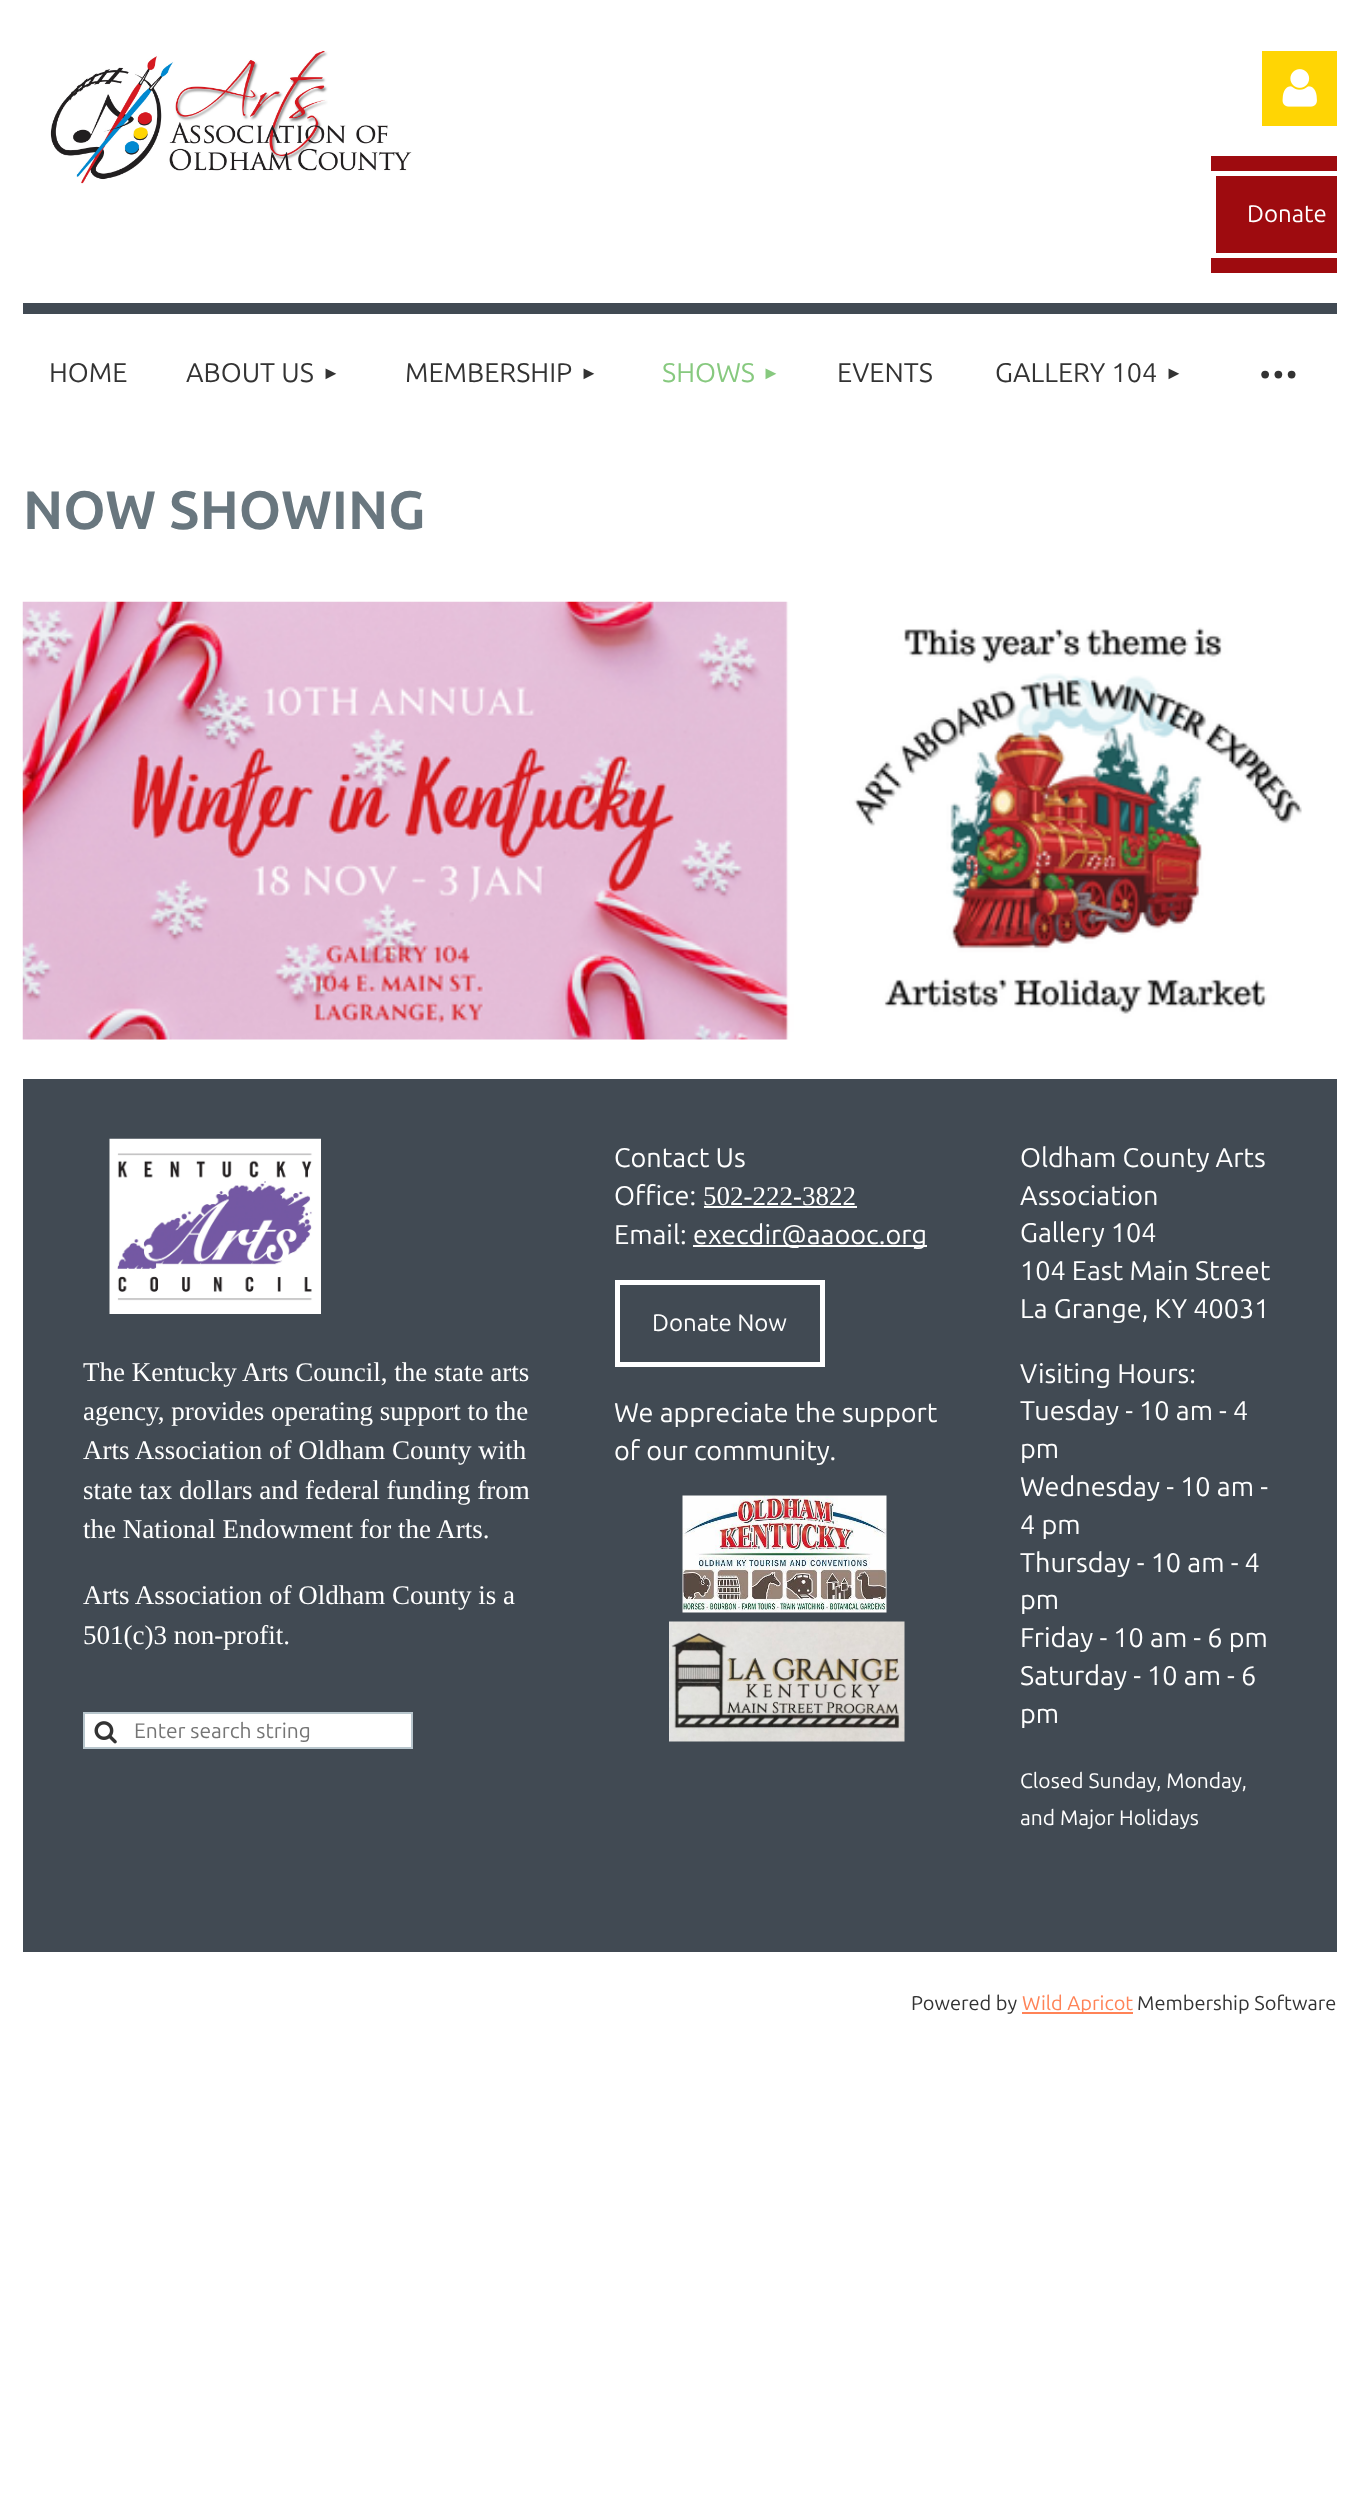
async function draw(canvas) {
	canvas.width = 1358;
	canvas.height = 2511;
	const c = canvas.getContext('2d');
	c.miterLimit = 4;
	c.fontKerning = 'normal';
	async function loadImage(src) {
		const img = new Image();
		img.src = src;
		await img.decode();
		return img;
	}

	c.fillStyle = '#fff';
	c.fillRect(0, 0, 1358, 2511);
	c.drawImage(await loadImage('img1.png'), 50, 50, 362, 134);
	c.fillStyle = '#ffd504';
	c.fillRect(1262, 51, 75, 75);
	c.drawImage(await loadImage('img2.png'), 1282, 69, 35, 38);
	c.fillStyle = '#9e0b0f';
	c.fillRect(1211, 156, 126, 117);
	c.save();
	c.beginPath();
	c.rect(1211, 156, 126, 117);
	c.clip();
	c.strokeStyle = '#fff';
	c.lineWidth = 5;
	c.strokeRect(1213.5, 173.5, 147, 82);
	c.restore();
	c.font = '24px Ubuntu';
	c.fillStyle = '#fff';
	c.fillText('Donate', 1247, 222);
	c.fillStyle = '#414a53';
	c.fillRect(23, 303, 1314, 11);
	c.font = '27px Ubuntu';
	c.fillStyle = '#333';
	c.fillText('HOME', 49, 382);
	c.fillText('ABOUT US', 186, 382);
	c.font = '18px Liberation Sans';
	c.fillText('►', 322, 379);
	c.font = '27px Ubuntu';
	c.fillText('MEMBERSHIP', 405, 382);
	c.font = '18px Liberation Sans';
	c.fillText('►', 580, 379);
	c.font = '27px Ubuntu';
	c.fillStyle = '#87c97f';
	c.fillText('SHOWS', 662, 382);
	c.font = '18px Liberation Sans';
	c.fillText('►', 762, 379);
	c.font = '27px Ubuntu';
	c.fillStyle = '#333';
	c.fillText('EVENTS', 837, 382);
	c.fillText('GALLERY 104', 995, 382);
	c.font = '18px Liberation Sans';
	c.fillText('►', 1165, 379);
	c.letterSpacing = '-3px';
	c.font = '66px Ubuntu';
	c.fillText('···', 1257, 394);
	c.letterSpacing = '0px';
	c.font = 'bold 54px Ubuntu';
	c.fillStyle = '#69777f';
	c.fillText('NOW SHOWING', 23, 529);
	c.drawImage(await loadImage('img3.png'), 22, 601, 1280, 439);
	c.fillStyle = '#414a53';
	c.fillRect(23, 1079, 1314, 873);
	c.font = '27px Ubuntu';
	c.fillStyle = '#fff';
	c.fillText('Contact Us', 614, 1167);
	c.fillText('Office:', 614, 1205);
	c.font = '27px Liberation Serif';
	c.fillText('502-222-3822', 703, 1205);
	c.fillRect(704, 1206, 153, 2);
	c.font = '27px Ubuntu';
	c.fillText('Email:', 614, 1244);
	c.fillRect(693, 1245, 234, 2);
	c.fillText('execdir@aaooc.org', 693, 1244);
	c.strokeStyle = '#fff';
	c.lineWidth = 5;
	c.strokeRect(617.5, 1282.5, 205, 82);
	c.font = '24px Ubuntu';
	c.fillText('Donate Now', 652, 1331);
	c.font = '27px Ubuntu';
	c.fillText('We appreciate the support', 614, 1422);
	c.fillText('of our community.', 614, 1460);
	c.drawImage(await loadImage('img4.png'), 682, 1495, 205, 118);
	c.drawImage(await loadImage('img5.png'), 669, 1621, 236, 121);
	for (const [text, x, y] of [
		['Oldham County Arts', 1020, 1167],
		['Association', 1020, 1205],
		['Gallery 104', 1020, 1242],
		['104 East Main Street', 1020, 1280],
		['La Grange, KY 40031', 1020, 1318],
		['Visiting Hours:', 1020, 1383],
		['Tuesday - 10 am - 4', 1020, 1420],
		['pm', 1020, 1458],
		['Wednesday - 10 am -', 1020, 1496],
		['4 pm', 1020, 1534],
		['Thursday - 10 am - 4', 1020, 1572],
		['pm', 1020, 1609],
		['Friday - 10 am - 6 pm', 1020, 1647],
		['Saturday - 10 am - 6', 1020, 1685],
		['pm', 1020, 1723],
	]) {
		c.fillText(text, x, y);
	}
	c.font = '21px Ubuntu';
	c.fillText('Closed Sunday, Monday,', 1020, 1788);
	c.fillText('and Major Holidays', 1020, 1825);
	c.drawImage(await loadImage('img6.png'), 109, 1138, 212, 176);
	c.font = '27px Liberation Serif';
	for (const [text, x, y] of [
		['The Kentucky Arts Council, the state arts', 83, 1381],
		['agency, provides operating support to the', 83, 1420],
		['Arts Association of Oldham County with', 83, 1459],
		['state tax dollars and federal funding from', 83, 1499],
		['the National Endowment for the Arts.', 83, 1538],
		['Arts Association of Oldham County is a', 83, 1604],
		['501(c)3 non-profit.', 83, 1644],
	]) {
		c.fillText(text, x, y);
	}
	c.beginPath();
	c.rect(84, 1713, 328, 35);
	c.fill();
	c.strokeStyle = '#b8c6cd';
	c.lineWidth = 2;
	c.stroke();
	c.drawImage(await loadImage('img7.png'), 94, 1721, 23, 23);
	c.font = '21px Ubuntu';
	c.fillStyle = '#757575';
	c.fillText('Enter search string', 134, 1738);
	c.font = '20px Ubuntu';
	c.fillStyle = '#333';
	c.fillText('Powered by', 911, 2010);
	c.fillStyle = '#ff8357';
	c.fillRect(1022, 2012, 111, 2);
	c.fillText('Wild Apricot', 1022, 2010);
	c.fillStyle = '#333';
	c.fillText('Membership Software', 1137, 2010);
}

draw(document.querySelector('canvas'));
